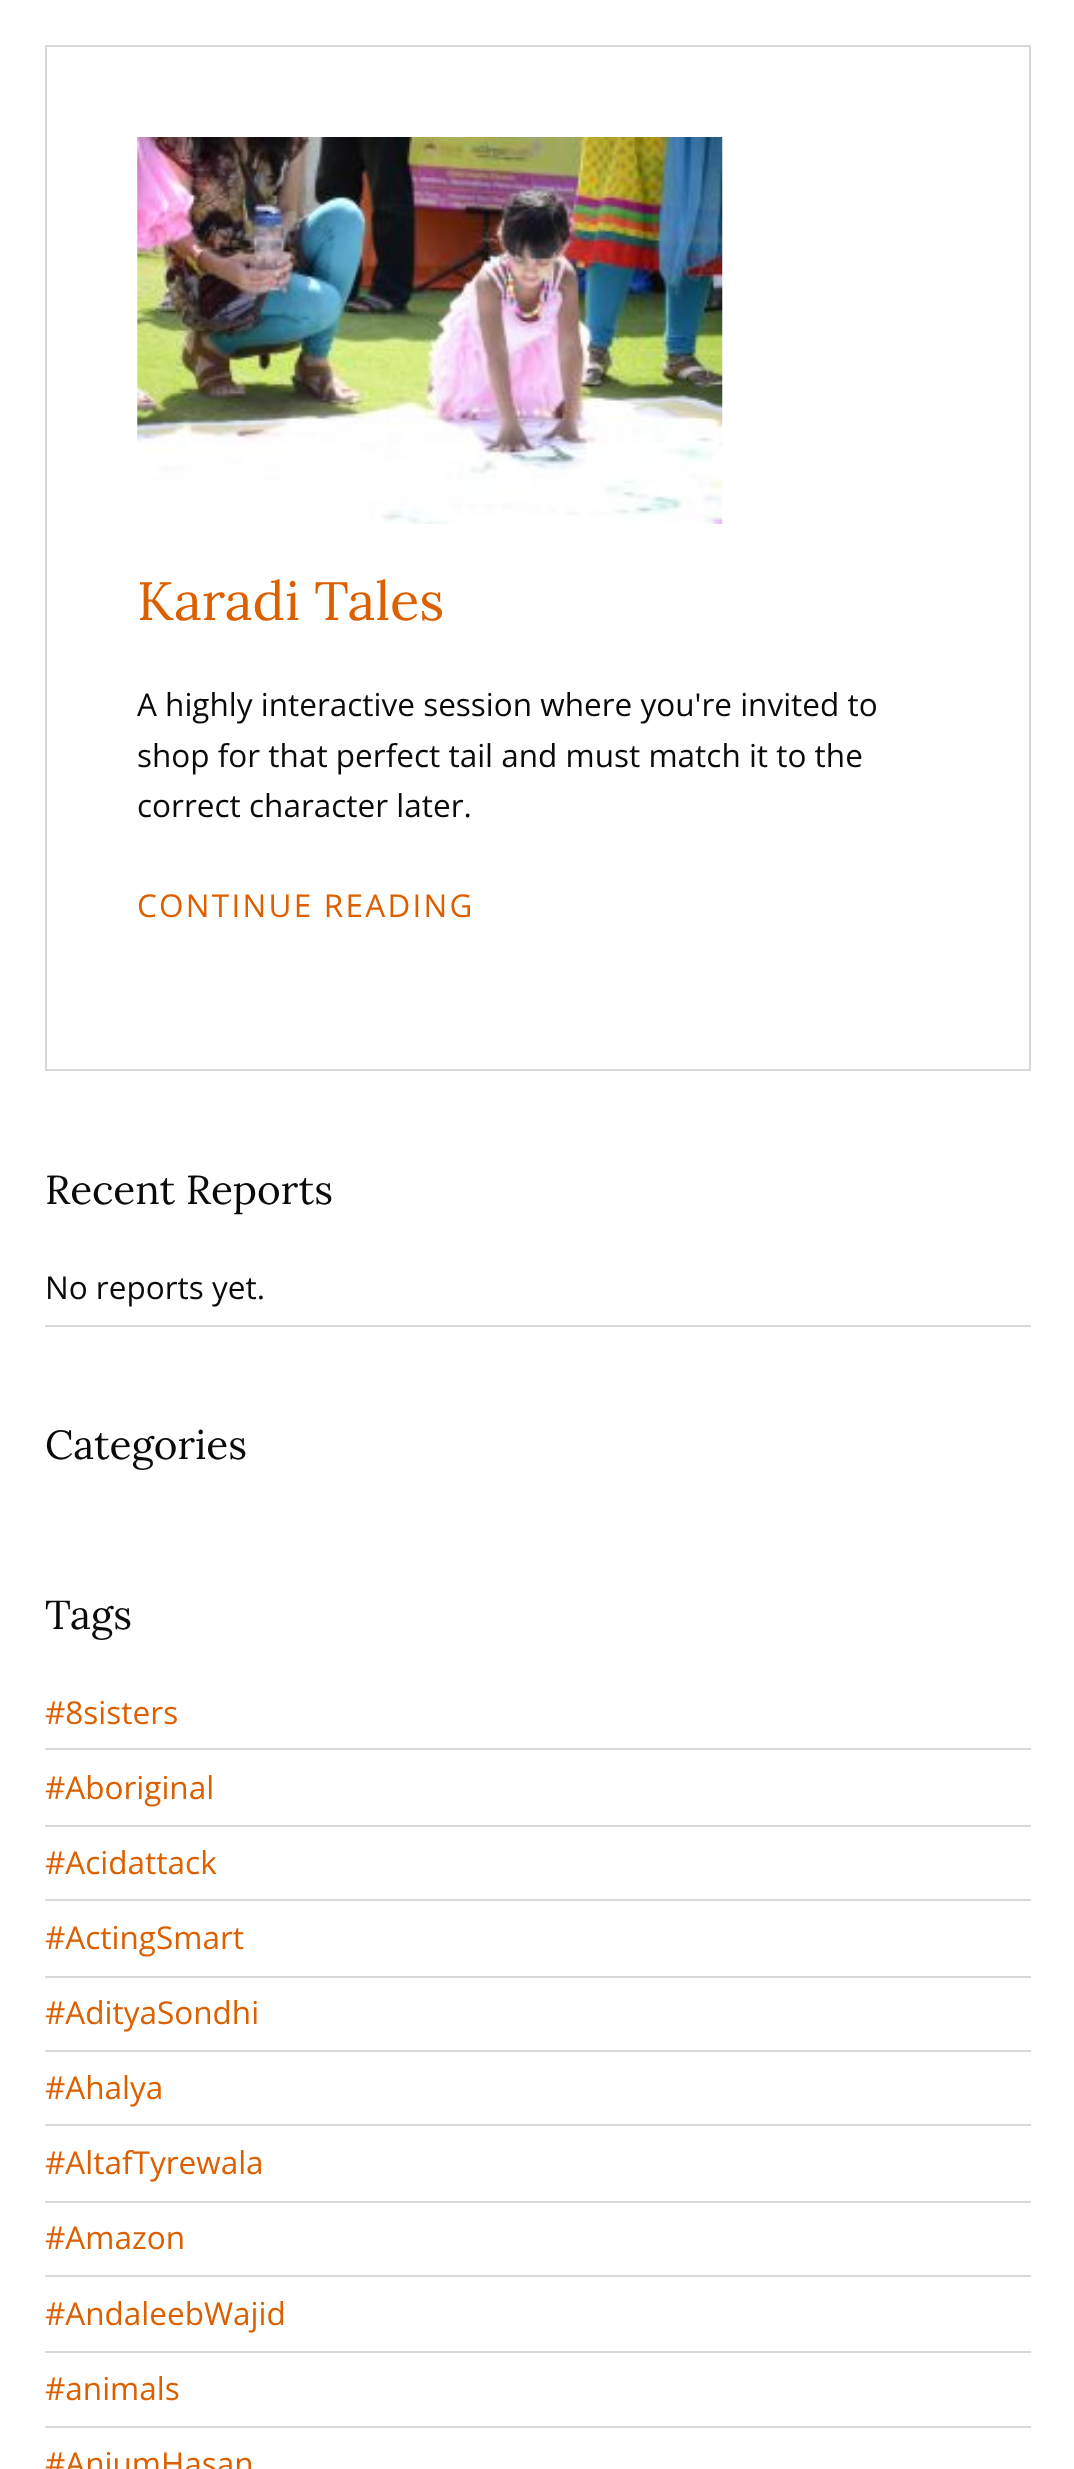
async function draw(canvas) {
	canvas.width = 1074;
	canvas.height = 2469;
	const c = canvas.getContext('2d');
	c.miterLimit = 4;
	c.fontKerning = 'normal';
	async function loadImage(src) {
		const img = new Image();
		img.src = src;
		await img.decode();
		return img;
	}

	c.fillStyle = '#fff';
	c.fillRect(0, 0, 1074, 2469);
	c.strokeStyle = '#d9d9d9';
	c.lineWidth = 2;
	c.strokeRect(46, 46, 984, 1024);
	c.drawImage(await loadImage('img1.png'), 137, 137, 586, 387);
	c.font = '54px Lora';
	c.fillStyle = '#dc5f00';
	c.fillText('Karadi Tales', 137, 620);
	c.font = '31.5px Open Sans';
	c.fillStyle = '#0a0a0a';
	for (const [text, x, y] of [
		['A highly interactive session where you\'re invited to', 137, 716],
		['shop for that perfect tail and must match it to the', 137, 767],
		['correct character later.', 137, 817],
	]) {
		c.fillText(text, x, y);
	}
	c.letterSpacing = '2.25px';
	c.fillStyle = '#dc5f00';
	c.fillText('CONTINUE READING', 137, 917);
	c.letterSpacing = '0px';
	c.font = '40.5px Lora';
	c.fillStyle = '#0a0a0a';
	c.fillText('Recent Reports', 45, 1204);
	c.fillStyle = '#d9d9d9';
	c.fillRect(45, 1325, 986, 2);
	c.font = '31.5px Open Sans';
	c.fillStyle = '#0a0a0a';
	c.fillText('No reports yet.', 45, 1299);
	c.font = '40.5px Lora';
	c.fillText('Categories', 45, 1459);
	c.fillText('Tags', 45, 1629);
	c.fillStyle = '#d9d9d9';
	c.fillRect(45, 1748, 986, 2);
	c.font = '31.5px Open Sans';
	c.fillStyle = '#dc5f00';
	c.fillText('#8sisters', 45, 1724);
	c.fillStyle = '#d9d9d9';
	c.fillRect(45, 1825, 986, 2);
	c.fillStyle = '#dc5f00';
	c.fillText('#Aboriginal', 45, 1799);
	c.fillStyle = '#d9d9d9';
	c.fillRect(45, 1899, 986, 2);
	c.fillStyle = '#dc5f00';
	c.fillText('#Acidattack', 45, 1874);
	c.fillStyle = '#d9d9d9';
	c.fillRect(45, 1976, 986, 2);
	c.fillStyle = '#dc5f00';
	c.fillText('#ActingSmart', 45, 1949);
	c.fillStyle = '#d9d9d9';
	c.fillRect(45, 2050, 986, 2);
	c.fillStyle = '#dc5f00';
	c.fillText('#AdityaSondhi', 45, 2024);
	c.fillStyle = '#d9d9d9';
	c.fillRect(45, 2124, 986, 2);
	c.fillStyle = '#dc5f00';
	c.fillText('#Ahalya', 45, 2099);
	c.fillStyle = '#d9d9d9';
	c.fillRect(45, 2201, 986, 2);
	c.fillStyle = '#dc5f00';
	c.fillText('#AltafTyrewala', 45, 2174);
	c.fillStyle = '#d9d9d9';
	c.fillRect(45, 2275, 986, 2);
	c.fillStyle = '#dc5f00';
	c.fillText('#Amazon', 45, 2249);
	c.fillStyle = '#d9d9d9';
	c.fillRect(45, 2351, 986, 2);
	c.fillStyle = '#dc5f00';
	c.fillText('#AndaleebWajid', 45, 2325);
	c.fillStyle = '#d9d9d9';
	c.fillRect(45, 2426, 986, 2);
	c.fillStyle = '#dc5f00';
	c.fillText('#animals', 45, 2400);
	c.fillText('#AnjumHasan', 45, 2475);
}

draw(document.querySelector('canvas'));
